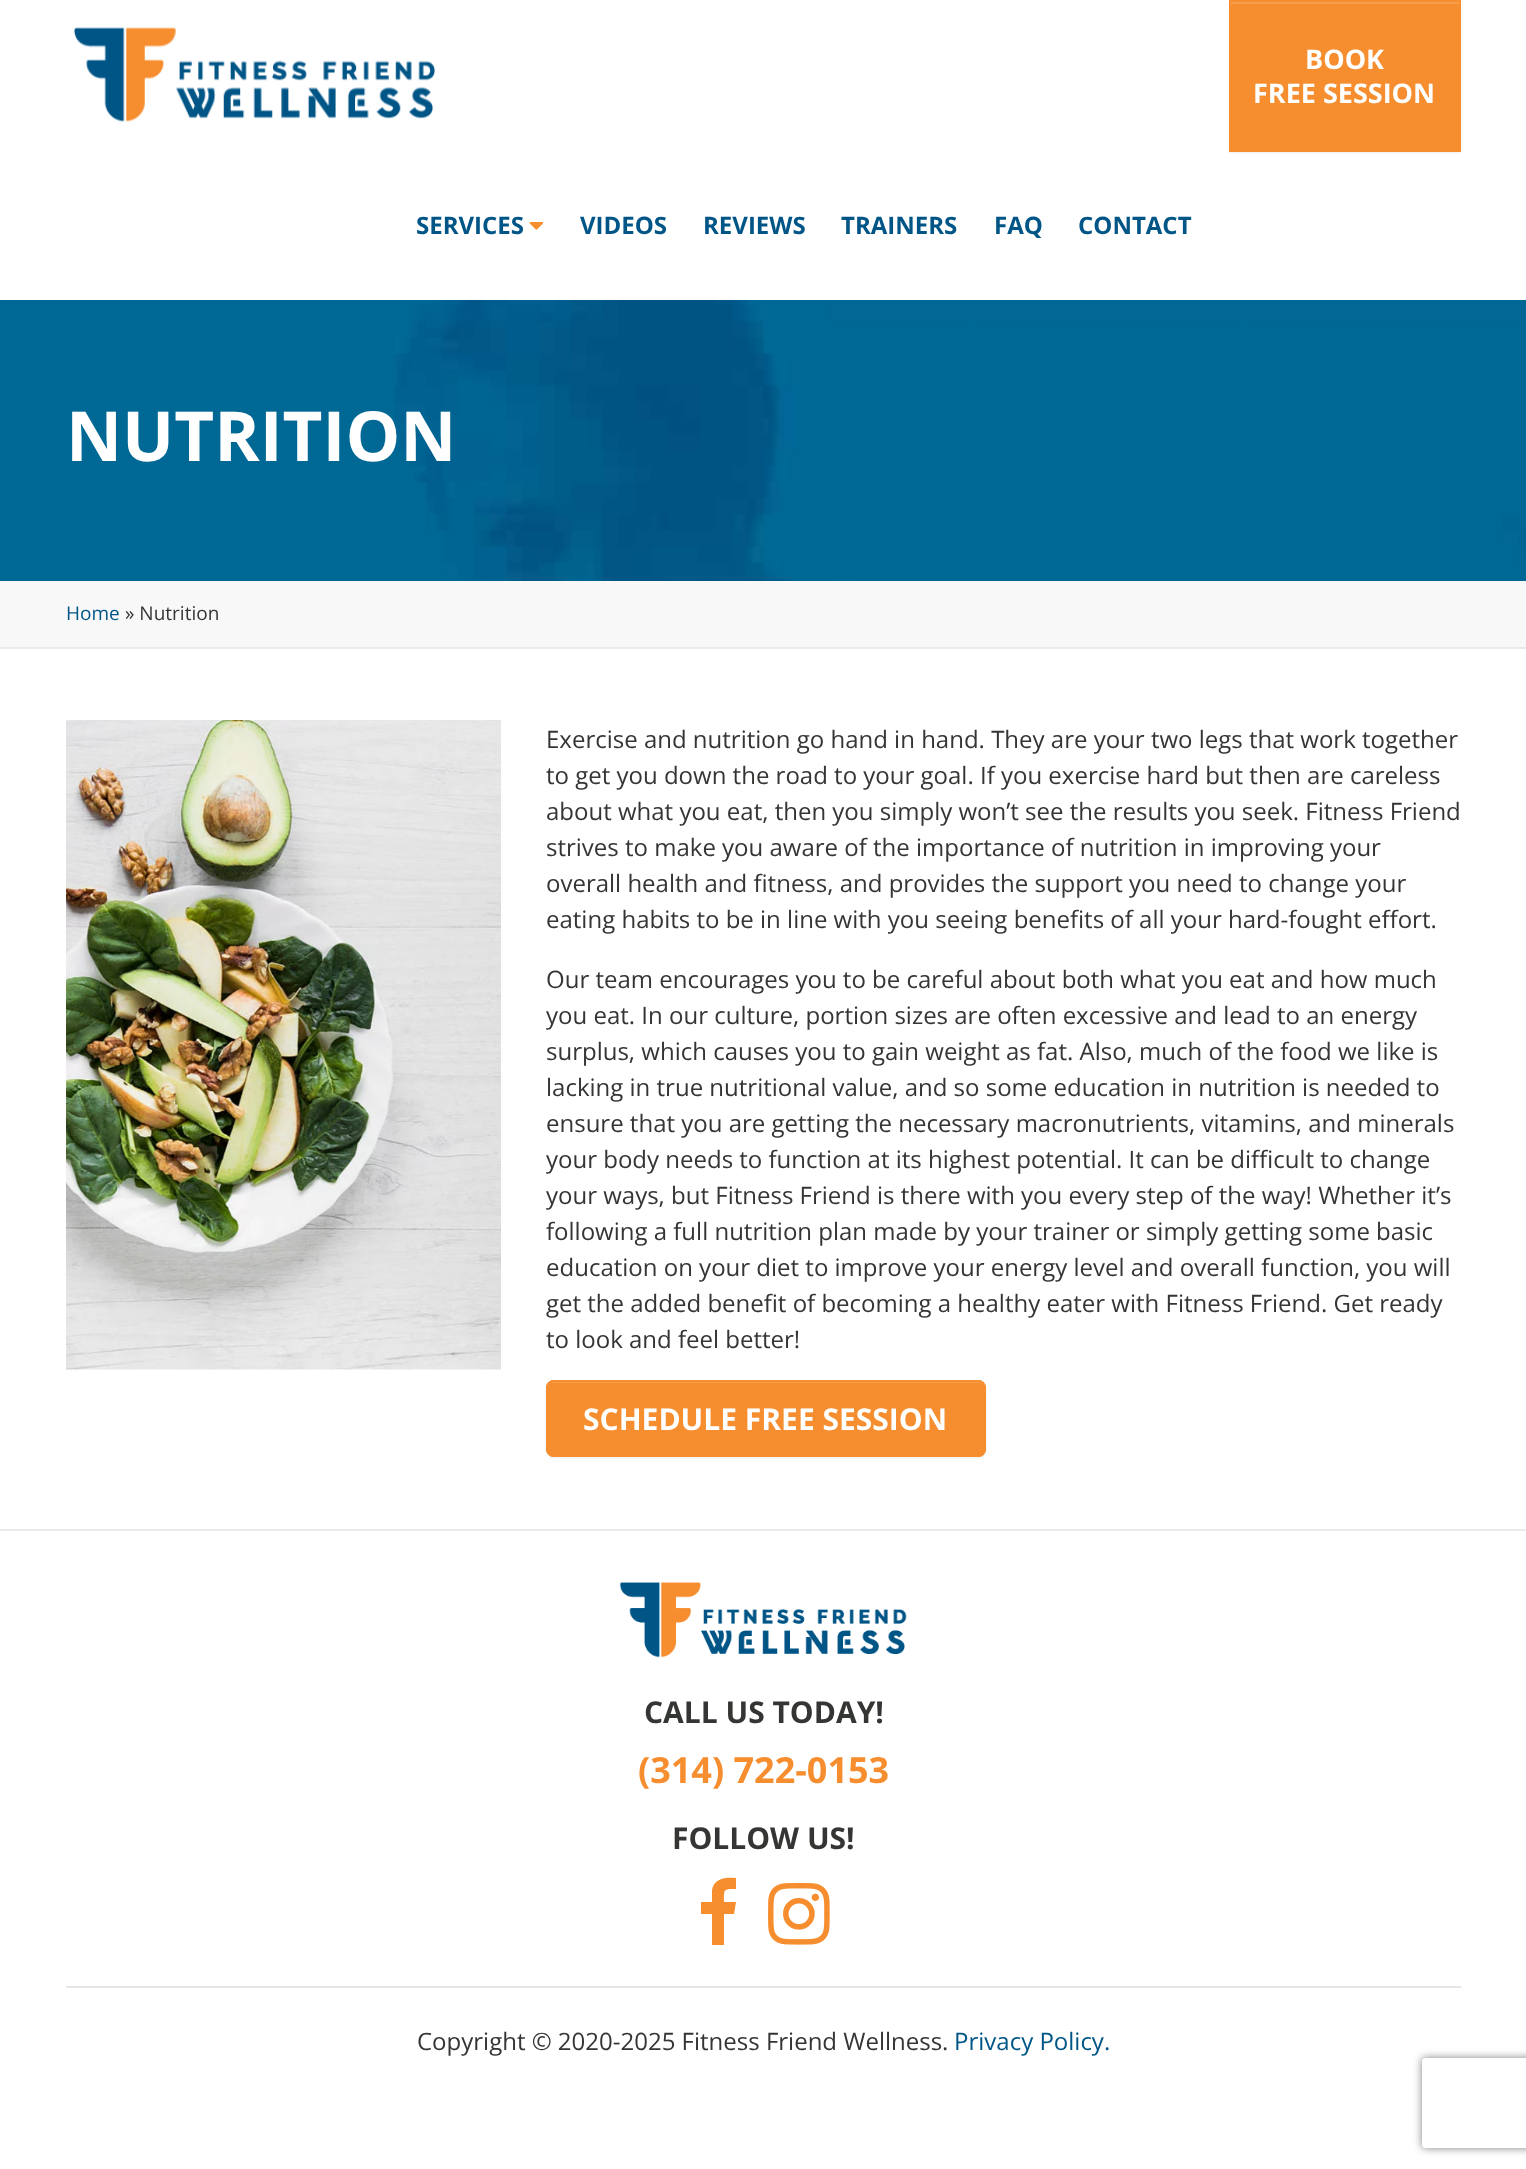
async function draw(canvas) {
	canvas.width = 1526;
	canvas.height = 2169;
	const c = canvas.getContext('2d');
	c.miterLimit = 4;
	c.fontKerning = 'normal';
	async function loadImage(src) {
		const img = new Image();
		img.src = src;
		await img.decode();
		return img;
	}

	c.fillStyle = '#fff';
	c.fillRect(0, 0, 1526, 2169);
	c.drawImage(await loadImage('img1.png'), 74, 27, 362, 96);
	c.fillStyle = '#00000012';
	c.filter = 'blur(1px)';
	c.beginPath();
	c.rect(1229, 2, 232, 151);
	c.fill();
	c.filter = 'none';
	c.fillStyle = '#f68d2e';
	c.fillRect(1231, 4, 228, 146);
	c.fillStyle = '#f79e4d';
	c.fillRect(1230, 2, 230, 2);
	c.strokeStyle = '#f68d2e';
	c.lineWidth = 2;
	c.strokeRect(1230, 1, 230, 150);
	c.font = 'bold 27px Open Sans';
	c.fillStyle = '#fff';
	c.fillText('BOOK', 1305, 69);
	c.fillText('FREE SESSION', 1253, 103);
	c.font = 'bold 24px Open Sans';
	c.fillStyle = '#005587';
	c.fillText('SERVICES', 416, 234);
	c.drawImage(await loadImage('img2.png'), 529, 222, 15, 8);
	for (const [text, x, y] of [
		['VIDEOS', 580, 234],
		['REVIEWS', 703, 234],
		['TRAINERS', 841, 234],
		['FAQ', 994, 234],
		['CONTACT', 1078, 234],
	]) {
		c.fillText(text, x, y);
	}
	c.drawImage(await loadImage('img3.png'), 0, 300, 1526, 281);
	c.font = 'bold 69px Open Sans';
	c.fillStyle = '#fff';
	c.fillText('NUTRITION', 66, 461);
	c.fillStyle = '#f8f8f8';
	c.fillRect(0, 581, 1526, 66);
	c.fillStyle = '#eaeaea';
	c.fillRect(0, 647, 1526, 2);
	c.font = '19px Open Sans';
	c.fillStyle = '#005587';
	c.fillText('Home', 66, 620);
	c.fillStyle = '#343633';
	c.fillText('» Nutrition', 125, 620);
	c.drawImage(await loadImage('img4.png'), 66, 720, 435, 650);
	c.font = '24px Open Sans';
	for (const [text, x, y] of [
		['Exercise and nutrition go hand in hand. They are your two legs that work together', 546, 748],
		['to get you down the road to your goal. If you exercise hard but then are careless', 546, 784],
		['about what you eat, then you simply won’t see the results you seek. Fitness Friend', 546, 820],
		['strives to make you aware of the importance of nutrition in improving your', 546, 856],
		['overall health and fitness, and provides the support you need to change your', 546, 892],
		['eating habits to be in line with you seeing benefits of all your hard-fought effort.', 546, 928],
		['Our team encourages you to be careful about both what you eat and how much', 546, 988],
		['you eat. In our culture, portion sizes are often excessive and lead to an energy', 546, 1024],
		['surplus, which causes you to gain weight as fat. Also, much of the food we like is', 546, 1060],
		['lacking in true nutritional value, and so some education in nutrition is needed to', 546, 1096],
		['ensure that you are getting the necessary macronutrients, vitamins, and minerals', 546, 1132],
		['your body needs to function at its highest potential. It can be difficult to change', 546, 1168],
		['your ways, but Fitness Friend is there with you every step of the way! Whether it’s', 546, 1204],
		['following a full nutrition plan made by your trainer or simply getting some basic', 546, 1240],
		['education on your diet to improve your energy level and overall function, you will', 546, 1276],
		['get the added benefit of becoming a healthy eater with Fitness Friend. Get ready', 546, 1312],
		['to look and feel better!', 546, 1348],
	]) {
		c.fillText(text, x, y);
	}
	c.fillStyle = '#00000012';
	c.filter = 'blur(1px)';
	c.beginPath();
	c.roundRect(546, 1382, 440, 76, 8);
	c.fill();
	c.filter = 'none';
	c.fillStyle = '#f68d2e';
	c.beginPath();
	c.roundRect(546, 1380, 440, 77, 8);
	c.fill();
	c.fillStyle = '#f79e4d';
	c.beginPath();
	c.moveTo(553, 1383);
	c.lineTo(978, 1383);
	c.bezierCurveTo(981, 1383, 984, 1386, 984, 1389);
	c.lineTo(984, 1388);
	c.bezierCurveTo(984, 1385, 981, 1382, 978, 1382);
	c.lineTo(554, 1382);
	c.bezierCurveTo(551, 1382, 548, 1385, 548, 1388);
	c.lineTo(548, 1389);
	c.bezierCurveTo(548, 1386, 550, 1383, 553, 1383);
	c.closePath();
	c.fill();
	c.beginPath();
	c.roundRect(547, 1381, 438, 75, 7);
	c.stroke();
	c.font = 'bold 30px Open Sans';
	c.fillStyle = '#fff';
	c.fillText('SCHEDULE FREE SESSION', 583, 1430);
	c.fillStyle = '#eaeaea';
	c.fillRect(0, 1529, 1526, 2);
	c.drawImage(await loadImage('img5.png'), 619, 1582, 288, 76);
	c.fillStyle = '#343633';
	c.fillText('CALL US TODAY!', 644, 1723);
	c.font = 'bold 36px Open Sans';
	c.fillStyle = '#f68d2e';
	c.fillText('(314) 722-0153', 638, 1783);
	c.font = 'bold 30px Open Sans';
	c.fillStyle = '#343633';
	c.fillText('FOLLOW US!', 672, 1849);
	c.fillStyle = '#f68d2e';
	c.beginPath();
	c.moveTo(736, 1878);
	c.lineTo(736, 1889);
	c.bezierCurveTo(723, 1889, 724, 1889, 724, 1902);
	c.lineTo(736, 1902);
	c.lineTo(734, 1914);
	c.lineTo(724, 1914);
	c.lineTo(724, 1945);
	c.lineTo(712, 1945);
	c.lineTo(712, 1914);
	c.lineTo(701, 1914);
	c.lineTo(701, 1902);
	c.lineTo(712, 1902);
	c.lineTo(712, 1890);
	c.bezierCurveTo(714, 1878, 726, 1877, 736, 1878);
	c.closePath();
	c.fill();
	c.drawImage(await loadImage('img6.png'), 768, 1882, 62, 63);
	c.fillStyle = '#e6e6e6';
	c.fillRect(66, 1986, 1395, 2);
	c.font = '24px Open Sans';
	c.fillStyle = '#343633';
	c.fillText('Copyright © 2020-2025 Fitness Friend Wellness.', 417, 2050);
	c.fillStyle = '#005587';
	c.fillText('Privacy Policy.', 954, 2050);
	c.save();
	c.beginPath();
	c.moveTo(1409, 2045);
	c.lineTo(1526, 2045);
	c.lineTo(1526, 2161);
	c.lineTo(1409, 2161);
	c.closePath();
	c.moveTo(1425, 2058);
	c.lineTo(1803, 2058);
	c.bezierCurveTo(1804.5, 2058, 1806, 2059.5, 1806, 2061);
	c.lineTo(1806, 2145);
	c.bezierCurveTo(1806, 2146.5, 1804.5, 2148, 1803, 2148);
	c.lineTo(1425, 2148);
	c.bezierCurveTo(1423.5, 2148, 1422, 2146.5, 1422, 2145);
	c.lineTo(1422, 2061);
	c.bezierCurveTo(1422, 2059.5, 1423.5, 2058, 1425, 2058);
	c.closePath();
	c.clip('evenodd');
	c.fillStyle = '#808080';
	c.filter = 'blur(4px)';
	c.beginPath();
	c.roundRect(1422, 2058, 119, 90, 3);
	c.fill();
	c.filter = 'none';
	c.restore();
}

draw(document.querySelector('canvas'));
